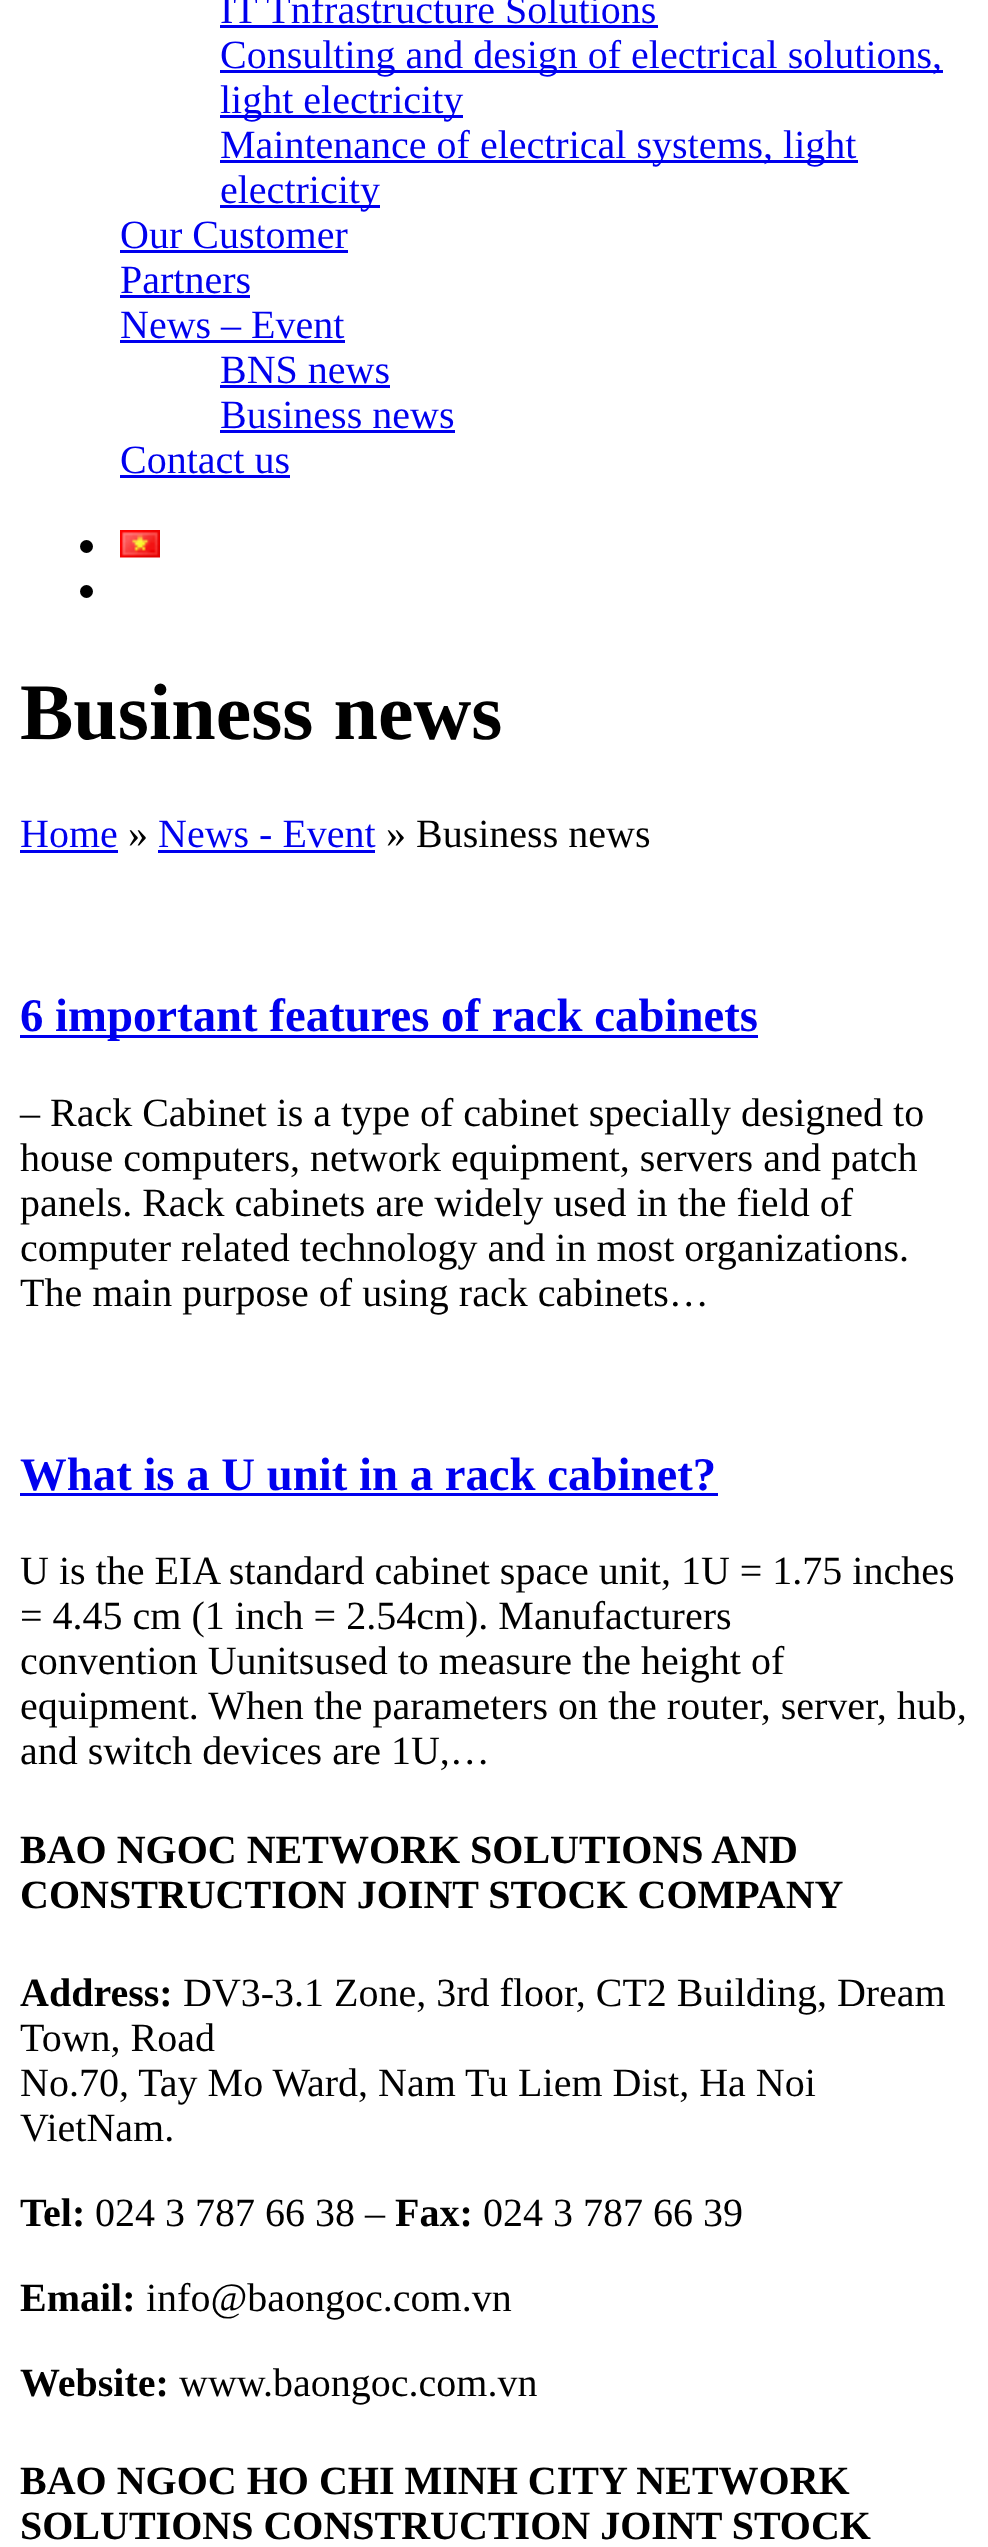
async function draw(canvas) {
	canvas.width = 988;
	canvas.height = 2547;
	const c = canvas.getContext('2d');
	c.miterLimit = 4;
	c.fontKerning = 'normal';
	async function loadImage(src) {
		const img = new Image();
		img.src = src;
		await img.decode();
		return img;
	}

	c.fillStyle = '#fff';
	c.fillRect(0, 0, 988, 2547);
	c.font = '40px Liberation Serif';
	c.fillStyle = '#00e';
	c.fillText('IT Tnfrastructure Solutions', 220, 23);
	c.fillRect(220, 25, 438, 3);
	c.fillRect(220, 70, 723, 3);
	c.fillText('Consulting and design of electrical solutions,', 220, 68);
	c.fillRect(220, 115, 243, 3);
	c.fillText('light electricity', 220, 113);
	c.fillRect(220, 160, 638, 3);
	c.fillText('Maintenance of electrical systems, light', 220, 158);
	c.fillRect(220, 205, 160, 3);
	c.fillText('electricity', 220, 203);
	c.fillText('Our Customer', 120, 248);
	c.fillRect(120, 250, 228, 3);
	c.fillText('Partners', 120, 293);
	c.fillRect(120, 295, 130, 3);
	c.fillText('News – Event', 120, 338);
	c.fillRect(120, 340, 225, 3);
	c.fillText('BNS news', 220, 383);
	c.fillRect(220, 385, 170, 3);
	c.fillText('Business news', 220, 428);
	c.fillRect(220, 430, 235, 3);
	c.fillText('Contact us', 120, 473);
	c.fillRect(120, 475, 170, 3);
	c.fillStyle = '#000';
	c.beginPath();
	c.arc(86.5, 546.5, 6.5, 0, 2 * Math.PI);
	c.fill();
	c.drawImage(await loadImage('img1.png'), 120, 530, 40, 28);
	c.beginPath();
	c.arc(86.5, 591.5, 6.5, 0, 2 * Math.PI);
	c.fill();
	c.font = 'bold 80px Liberation Serif';
	c.fillText('Business news', 20, 739);
	c.font = '40px Liberation Serif';
	c.fillStyle = '#00e';
	c.fillText('Home', 20, 847);
	c.fillRect(20, 850, 98, 3);
	c.fillStyle = '#000';
	c.fillText('»', 128, 847);
	c.fillStyle = '#00e';
	c.fillText('News - Event', 158, 847);
	c.fillRect(158, 850, 217, 3);
	c.fillStyle = '#000';
	c.fillText('» Business news', 386, 847);
	c.fillStyle = '#00e';
	c.fillRect(20, 1035, 738, 3);
	c.font = 'bold 46.75px Liberation Serif';
	c.fillText('6 important features of rack cabinets', 20, 1031);
	c.font = '40px Liberation Serif';
	c.fillStyle = '#000';
	for (const [text, x, y] of [
		['– Rack Cabinet is a type of cabinet specially designed to', 20, 1126],
		['house computers, network equipment, servers and patch', 20, 1171],
		['panels. Rack cabinets are widely used in the field of', 20, 1216],
		['computer related technology and in most organizations.', 20, 1261],
		['The main purpose of using rack cabinets…', 20, 1306],
	]) {
		c.fillText(text, x, y);
	}
	c.font = 'bold 46.75px Liberation Serif';
	c.fillStyle = '#00e';
	c.fillText('What is a U unit in a rack cabinet?', 20, 1490);
	c.fillRect(20, 1493, 698, 3);
	c.font = '40px Liberation Serif';
	c.fillStyle = '#000';
	for (const [text, x, y] of [
		['U is the EIA standard cabinet space unit, 1U = 1.75 inches', 20, 1584],
		['= 4.45 cm (1 inch = 2.54cm). Manufacturers', 20, 1629],
		['convention Uunitsused to measure the height of', 20, 1674],
		['equipment. When the parameters on the router, server, hub,', 20, 1719],
		['and switch devices are 1U,…', 20, 1764],
	]) {
		c.fillText(text, x, y);
	}
	c.font = 'bold 40px Liberation Serif';
	for (const [text, x, y] of [
		['BAO NGOC NETWORK SOLUTIONS AND', 20, 1863],
		['CONSTRUCTION JOINT STOCK COMPANY', 20, 1908],
		['Address:', 20, 2006],
	]) {
		c.fillText(text, x, y);
	}
	c.font = '40px Liberation Serif';
	for (const [text, x, y] of [
		['DV3-3.1 Zone, 3rd floor, CT2 Building, Dream', 183, 2006],
		['Town, Road', 20, 2051],
		['No.70, Tay Mo Ward, Nam Tu Liem Dist, Ha Noi', 20, 2096],
		['VietNam.', 20, 2141],
	]) {
		c.fillText(text, x, y);
	}
	c.font = 'bold 40px Liberation Serif';
	c.fillText('Tel:', 20, 2226);
	c.font = '40px Liberation Serif';
	c.fillText('024 3 787 66 38 –', 95, 2226);
	c.font = 'bold 40px Liberation Serif';
	c.fillText('Fax:', 395, 2226);
	c.font = '40px Liberation Serif';
	c.fillText('024 3 787 66 39', 483, 2226);
	c.font = 'bold 40px Liberation Serif';
	c.fillText('Email:', 20, 2311);
	c.font = '40px Liberation Serif';
	c.fillText('info@baongoc.com.vn', 146, 2311);
	c.font = 'bold 40px Liberation Serif';
	c.fillText('Website:', 20, 2396);
	c.font = '40px Liberation Serif';
	c.fillText('www.baongoc.com.vn', 179, 2396);
	c.font = 'bold 40px Liberation Serif';
	c.fillText('BAO NGOC HO CHI MINH CITY NETWORK', 20, 2494);
	c.fillText('SOLUTIONS CONSTRUCTION JOINT STOCK', 20, 2539);
}

draw(document.querySelector('canvas'));
